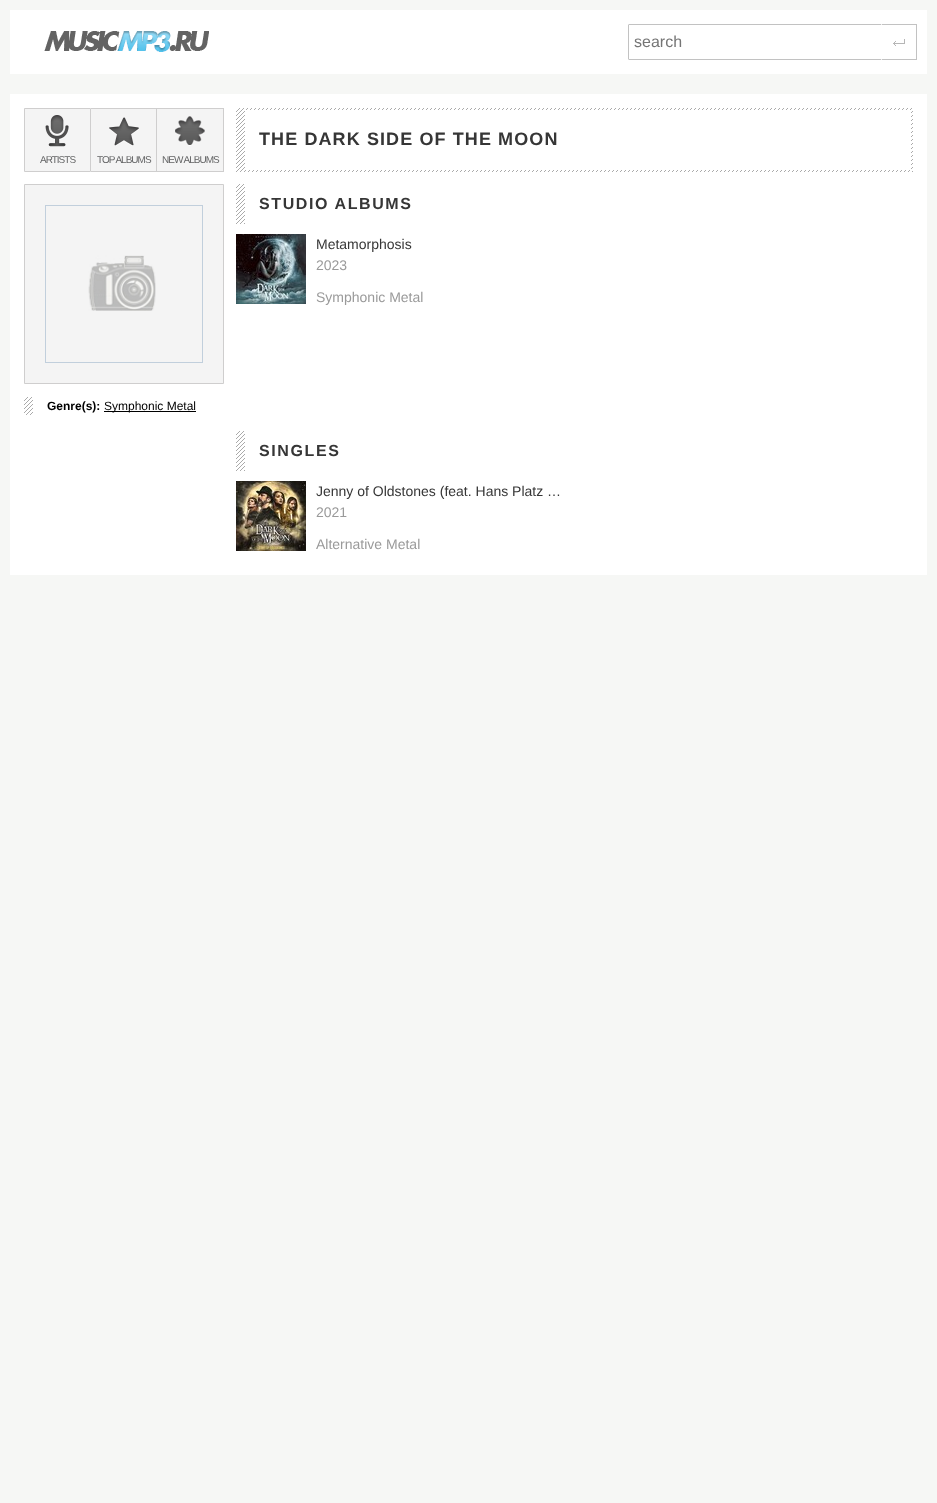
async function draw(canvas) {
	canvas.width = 937;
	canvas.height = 1503;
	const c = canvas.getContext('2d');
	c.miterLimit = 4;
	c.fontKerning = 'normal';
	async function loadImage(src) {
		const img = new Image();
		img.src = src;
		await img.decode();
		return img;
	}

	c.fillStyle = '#f6f7f5';
	c.fillRect(0, 0, 937, 1503);
	c.fillStyle = '#fff';
	c.fillRect(10, 10, 917, 64);
	c.drawImage(await loadImage('img1.png'), 44, 31, 165, 21);
	c.beginPath();
	c.roundRect(628.5, 24.5, 288, 35, 0.5);
	c.strokeStyle = '#c2c2c2';
	c.stroke();
	c.font = '16px Liberation Sans';
	c.fillStyle = '#757575';
	c.fillText('search', 634, 47);
	c.fillStyle = '#fff';
	c.beginPath();
	c.roundRect(881, 24, 36, 36, 1);
	c.fill();
	c.drawImage(await loadImage('img2.png'), 893, 39, 12, 7);
	for (const [x, y, w, h, color] of [
		[882, 24, 35, 1, '#c2c2c2'],
		[916, 25, 1, 35, '#c2c2c2'],
		[882, 59, 35, 1, '#c2c2c2'],
		[10, 94, 917, 481, '#fff'],
	]) {
		c.fillStyle = color;
		c.fillRect(x, y, w, h);
	}
	c.drawImage(await loadImage('img3.png'), 236, 108, 677, 64);
	c.fillRect(245, 110, 666, 60);
	c.letterSpacing = '1.1px';
	c.font = 'bold 18px Liberation Sans';
	c.fillStyle = '#363636';
	c.fillText('THE DARK SIDE OF THE MOON', 259, 145);
	c.fillStyle = '#f4f4f4';
	c.beginPath();
	c.rect(24.5, 108.5, 66, 63);
	c.fill();
	c.strokeStyle = '#cfcece';
	c.stroke();
	c.drawImage(await loadImage('img4.png'), 45, 115, 24, 32);
	c.letterSpacing = '-1px';
	c.font = '10px Liberation Sans';
	c.fillStyle = '#636465';
	c.fillText('ARTISTS', 40, 163);
	for (const [x, y, w, h, color] of [
		[91, 109, 65, 62, '#f4f4f4'],
		[91, 108, 133, 1, '#cfcece'],
		[156, 108, 1, 64, '#cfcece'],
		[91, 171, 66, 1, '#cfcece'],
	]) {
		c.fillStyle = color;
		c.fillRect(x, y, w, h);
	}
	c.drawImage(await loadImage('img5.png'), 109, 117, 30, 29);
	c.fillStyle = '#636465';
	c.fillText('TOP ALBUMS', 97, 163);
	for (const [x, y, w, h, color] of [
		[157, 109, 66, 62, '#f4f4f4'],
		[223, 108, 1, 64, '#cfcece'],
		[157, 171, 67, 1, '#cfcece'],
	]) {
		c.fillStyle = color;
		c.fillRect(x, y, w, h);
	}
	c.drawImage(await loadImage('img6.png'), 175, 116, 30, 30);
	c.fillStyle = '#636465';
	c.fillText('NEW ALBUMS', 162, 163);
	c.fillStyle = '#f4f4f4';
	c.beginPath();
	c.rect(24.5, 184.5, 199, 199);
	c.fill();
	c.stroke();
	c.strokeStyle = '#c1cfdc';
	c.strokeRect(45.5, 205.5, 157, 157);
	c.drawImage(await loadImage('img7.png'), 88, 255, 68, 56);
	c.drawImage(await loadImage('img8.png'), 24, 397, 9, 18);
	c.letterSpacing = '0px';
	c.font = 'bold 12px Liberation Sans';
	c.fillStyle = '#000';
	c.fillText('Genre(s):', 47, 410);
	c.fillRect(104, 411, 92, 1);
	c.font = '12px Liberation Sans';
	c.fillText('Symphonic Metal', 104, 410);
	c.drawImage(await loadImage('img9.png'), 236, 184, 9, 40);
	c.letterSpacing = '1.6px';
	c.font = 'bold 16px Liberation Sans';
	c.fillStyle = '#363636';
	c.fillText('STUDIO ALBUMS', 259, 209);
	c.drawImage(await loadImage('img10.png'), 236, 234, 70, 70);
	c.letterSpacing = '0px';
	c.font = '14px Liberation Sans';
	c.fillText('Metamorphosis', 316, 249);
	c.fillStyle = '#9a9a9a';
	c.fillText('2023', 316, 270);
	c.fillText('Symphonic Metal', 316, 302);
	c.drawImage(await loadImage('img9.png'), 236, 431, 9, 40);
	c.letterSpacing = '1.6px';
	c.font = 'bold 16px Liberation Sans';
	c.fillStyle = '#363636';
	c.fillText('SINGLES', 259, 456);
	c.drawImage(await loadImage('img11.png'), 236, 481, 70, 70);
	c.letterSpacing = '0px';
	c.font = '14px Liberation Sans';
	c.fillText('Jenny of Oldstones (feat. Hans Platz …', 316, 496);
	c.fillStyle = '#9a9a9a';
	c.fillText('2021', 316, 517);
	c.fillText('Alternative Metal', 316, 549);
}

draw(document.querySelector('canvas'));
